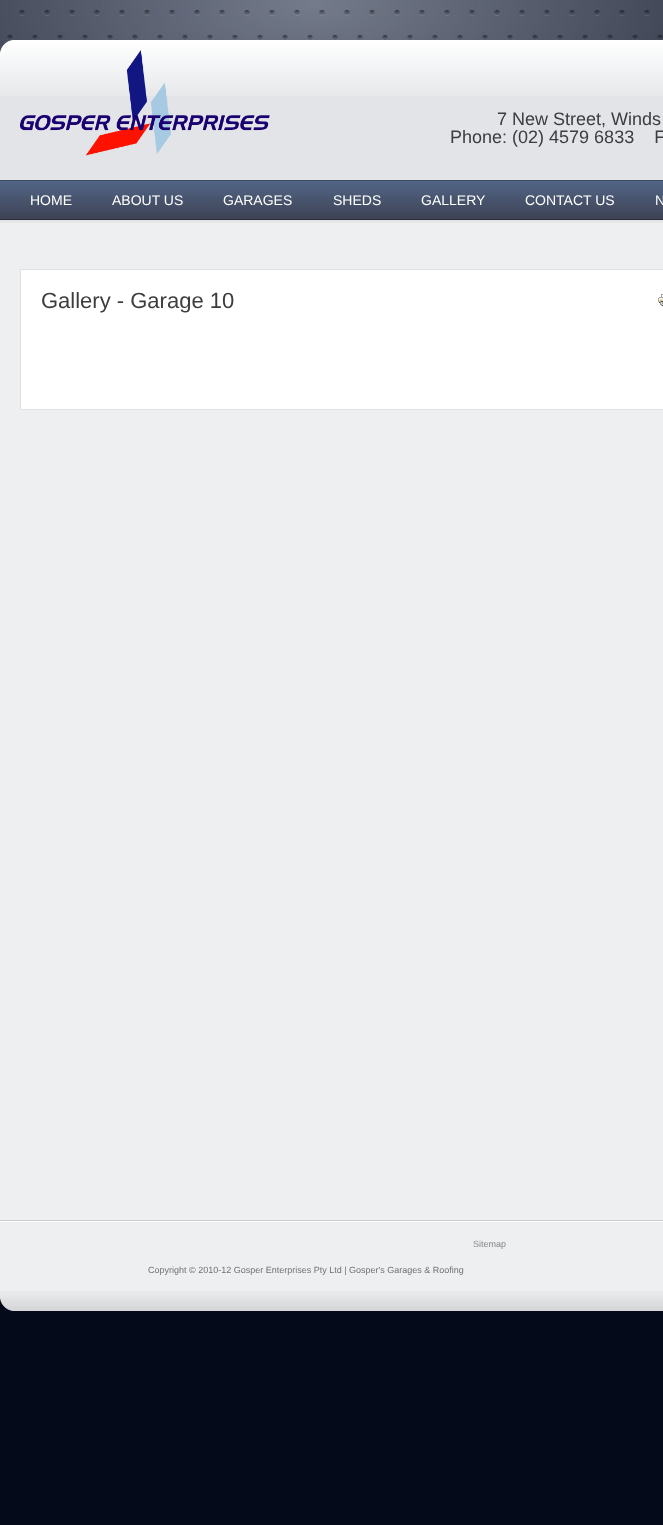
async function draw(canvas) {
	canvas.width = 663;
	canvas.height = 1525;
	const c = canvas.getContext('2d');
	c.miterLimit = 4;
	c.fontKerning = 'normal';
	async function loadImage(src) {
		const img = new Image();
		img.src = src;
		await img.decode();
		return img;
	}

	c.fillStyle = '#050a1b';
	c.fillRect(0, 0, 663, 1525);
	c.drawImage(await loadImage('img1.png'), 0, 0, 663, 53);
	c.drawImage(await loadImage('img2.png'), 0, 40, 15, 15);
	c.drawImage(await loadImage('img3.png'), 15, 40, 648, 15);
	c.fillStyle = '#e2e4e7';
	c.fillRect(0, 96, 663, 84);
	c.drawImage(await loadImage('img5.png'), 0, 55, 663, 41);
	c.drawImage(await loadImage('img4.png'), 20, 50, 250, 106);
	c.font = '18px Liberation Sans';
	c.fillStyle = '#3c3d3e';
	c.fillText('7 New Street, Winds', 497, 125);
	c.fillText('Phone: (02) 4579 6833    F', 450, 143);
	c.fillStyle = '#eeeff0';
	c.fillRect(0, 220, 663, 1000);
	c.drawImage(await loadImage('img6.png'), 0, 180, 663, 43);
	c.font = '14px Liberation Sans';
	c.fillStyle = '#fff';
	for (const [text, x, y] of [
		['HOME', 30, 205],
		['ABOUT US', 112, 205],
		['GARAGES', 223, 205],
		['SHEDS', 333, 205],
		['GALLERY', 421, 205],
		['CONTACT US', 525, 205],
		['N', 655, 205],
	]) {
		c.fillText(text, x, y);
	}
	c.fillStyle = '#cbcbcc';
	c.fillRect(0, 1220, 663, 1);
	c.fillStyle = '#fff';
	c.beginPath();
	c.rect(20.5, 269.5, 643, 140);
	c.fill();
	c.strokeStyle = '#dfe0e1';
	c.stroke();
	c.font = '22px Liberation Sans';
	c.fillStyle = '#3c3d3e';
	c.fillText('Gallery - Garage 10', 41, 308);
	c.drawImage(await loadImage('img7.png'), 658, 294, 5, 12);
	for (const [x, y, w, h, color] of [
		[0, 1222, 663, 69, '#eeeff0'],
		[0, 1291, 663, 5, '#e7e8e9'],
		[0, 1221, 663, 1, '#fff'],
	]) {
		c.fillStyle = color;
		c.fillRect(x, y, w, h);
	}
	c.font = '9px Liberation Sans';
	c.fillStyle = '#858586';
	c.fillText('Sitemap', 473, 1247);
	c.fillStyle = '#717172';
	c.fillText('Copyright © 2010-12 Gosper Enterprises Pty Ltd | Gosper\'s Garages & Roofing', 148, 1273);
	c.drawImage(await loadImage('img8.png'), 0, 1296, 15, 15);
	c.drawImage(await loadImage('img9.png'), 15, 1296, 648, 15);
}

draw(document.querySelector('canvas'));
